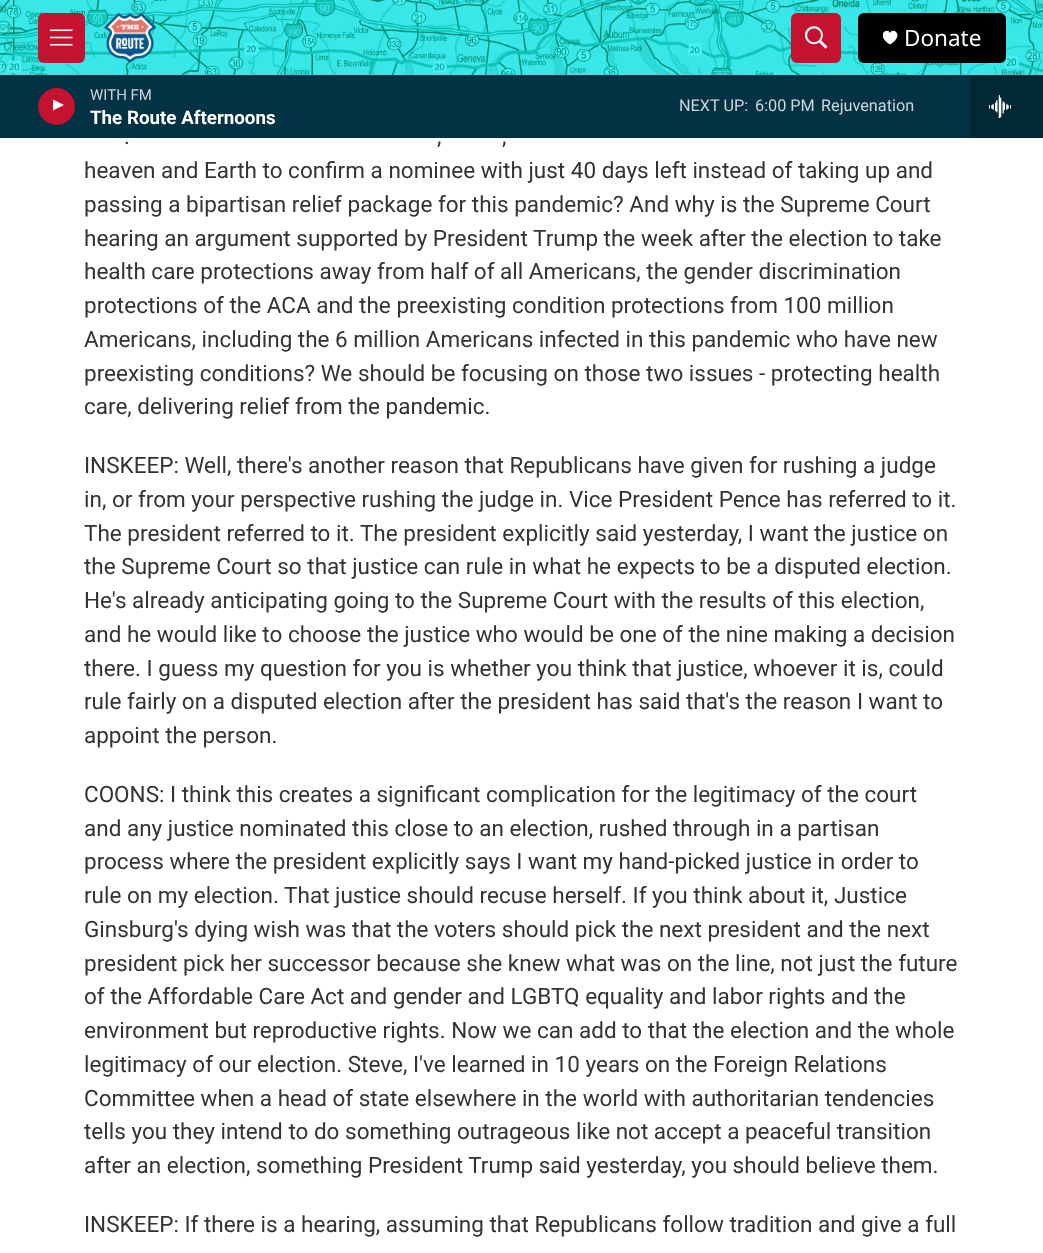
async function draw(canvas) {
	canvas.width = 1043;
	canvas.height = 1253;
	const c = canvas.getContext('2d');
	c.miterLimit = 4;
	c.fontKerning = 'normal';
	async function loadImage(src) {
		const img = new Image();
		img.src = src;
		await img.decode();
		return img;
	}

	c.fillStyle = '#fff';
	c.fillRect(0, 0, 1043, 1253);
	c.fillStyle = '#f5f5f5';
	c.fillRect(0, 138, 1043, 1);
	c.drawImage(await loadImage('img1.png'), 0, 0, 1043, 75);
	c.fillStyle = '#c41230';
	c.beginPath();
	c.roundRect(38, 13, 47, 50, 6);
	c.fill();
	c.drawImage(await loadImage('img2.png'), 50, 29, 23, 17);
	c.drawImage(await loadImage('img3.png'), 103, 12, 54, 51);
	c.beginPath();
	c.roundRect(791, 13, 50, 50, 6);
	c.fill();
	c.drawImage(await loadImage('img4.png'), 805, 26, 23, 23);
	c.fillStyle = '#000';
	c.beginPath();
	c.roundRect(858, 13, 148, 50, 6);
	c.fill();
	c.save();
	c.beginPath();
	c.rect(883, 30, 15, 15);
	c.clip();
	c.fillStyle = '#fff';
	c.beginPath();
	c.moveTo(890, 33);
	c.bezierCurveTo(887.5, 26.5, 874.5, 35, 890, 44.5);
	c.bezierCurveTo(905.5, 35, 892.5, 26.5, 890, 33);
	c.closePath();
	c.fill();
	c.restore();
	c.font = '22.5px Noto Sans';
	c.fillStyle = '#fff';
	c.fillText('Donate', 904, 46);
	c.fillStyle = '#033244';
	c.fillRect(0, 75, 970, 63);
	c.fillStyle = '#c41230';
	c.beginPath();
	c.arc(56.5, 106.5, 18.5, 0, 2 * Math.PI);
	c.fill();
	c.save();
	c.beginPath();
	c.rect(53, 98, 14, 18);
	c.clip();
	c.fillStyle = '#fff';
	c.beginPath();
	c.moveTo(52, 99);
	c.lineTo(64, 105);
	c.lineTo(52, 111);
	c.closePath();
	c.fill();
	c.restore();
	c.font = '15px Roboto';
	c.fillStyle = '#cdd6da';
	c.fillText('WITH FM', 90, 100);
	c.font = 'bold 18.75px Roboto';
	c.fillStyle = '#fff';
	c.fillText('The Route Afternoons', 90, 124);
	c.font = '16.25px Roboto';
	c.fillStyle = '#cdd6da';
	for (const [text, x, y] of [
		['NEXT UP:', 679, 111],
		['6:00 PM', 755, 111],
		['Rejuvenation', 821, 111],
	]) {
		c.fillText(text, x, y);
	}
	c.fillStyle = '#022836';
	c.fillRect(970, 75, 73, 63);
	c.drawImage(await loadImage('img5.png'), 989, 95, 22, 23);
	c.font = '22.5px Roboto';
	c.fillStyle = '#333';
	for (const [text, x, y] of [
		['.', 124, 144],
		[',', 437, 144],
		[',', 502, 144],
		['heaven and Earth to confirm a nominee with just 40 days left instead of taking up and', 84, 178],
		['passing a bipartisan relief package for this pandemic? And why is the Supreme Court', 84, 212],
		['hearing an argument supported by President Trump the week after the election to take', 84, 246],
		['health care protections away from half of all Americans, the gender discrimination', 84, 279],
		['protections of the ACA and the preexisting condition protections from 100 million', 84, 313],
		['Americans, including the 6 million Americans infected in this pandemic who have new', 84, 347],
		['preexisting conditions? We should be focusing on those two issues - protecting health', 84, 381],
		['care, delivering relief from the pandemic.', 84, 414],
		['INSKEEP: Well, there\'s another reason that Republicans have given for rushing a judge', 84, 473],
		['in, or from your perspective rushing the judge in. Vice President Pence has referred to it.', 84, 507],
		['The president referred to it. The president explicitly said yesterday, I want the justice on', 84, 541],
		['the Supreme Court so that justice can rule in what he expects to be a disputed election.', 84, 574],
		['He\'s already anticipating going to the Supreme Court with the results of this election,', 84, 608],
		['and he would like to choose the justice who would be one of the nine making a decision', 84, 642],
		['there. I guess my question for you is whether you think that justice, whoever it is, could', 84, 676],
		['rule fairly on a disputed election after the president has said that\'s the reason I want to', 84, 709],
		['appoint the person.', 84, 743],
		['COONS: I think this creates a significant complication for the legitimacy of the court', 84, 802],
		['and any justice nominated this close to an election, rushed through in a partisan', 84, 836],
		['process where the president explicitly says I want my hand-picked justice in order to', 84, 869],
		['rule on my election. That justice should recuse herself. If you think about it, Justice', 84, 903],
		['Ginsburg\'s dying wish was that the voters should pick the next president and the next', 84, 937],
		['president pick her successor because she knew what was on the line, not just the future', 84, 971],
		['of the Affordable Care Act and gender and LGBTQ equality and labor rights and the', 84, 1004],
		['environment but reproductive rights. Now we can add to that the election and the whole', 84, 1038],
		['legitimacy of our election. Steve, I\'ve learned in 10 years on the Foreign Relations', 84, 1072],
		['Committee when a head of state elsewhere in the world with authoritarian tendencies', 84, 1106],
		['tells you they intend to do something outrageous like not accept a peaceful transition', 84, 1139],
		['after an election, something President Trump said yesterday, you should believe them.', 84, 1173],
		['INSKEEP: If there is a hearing, assuming that Republicans follow tradition and give a full', 84, 1232],
	]) {
		c.fillText(text, x, y);
	}
}

draw(document.querySelector('canvas'));
